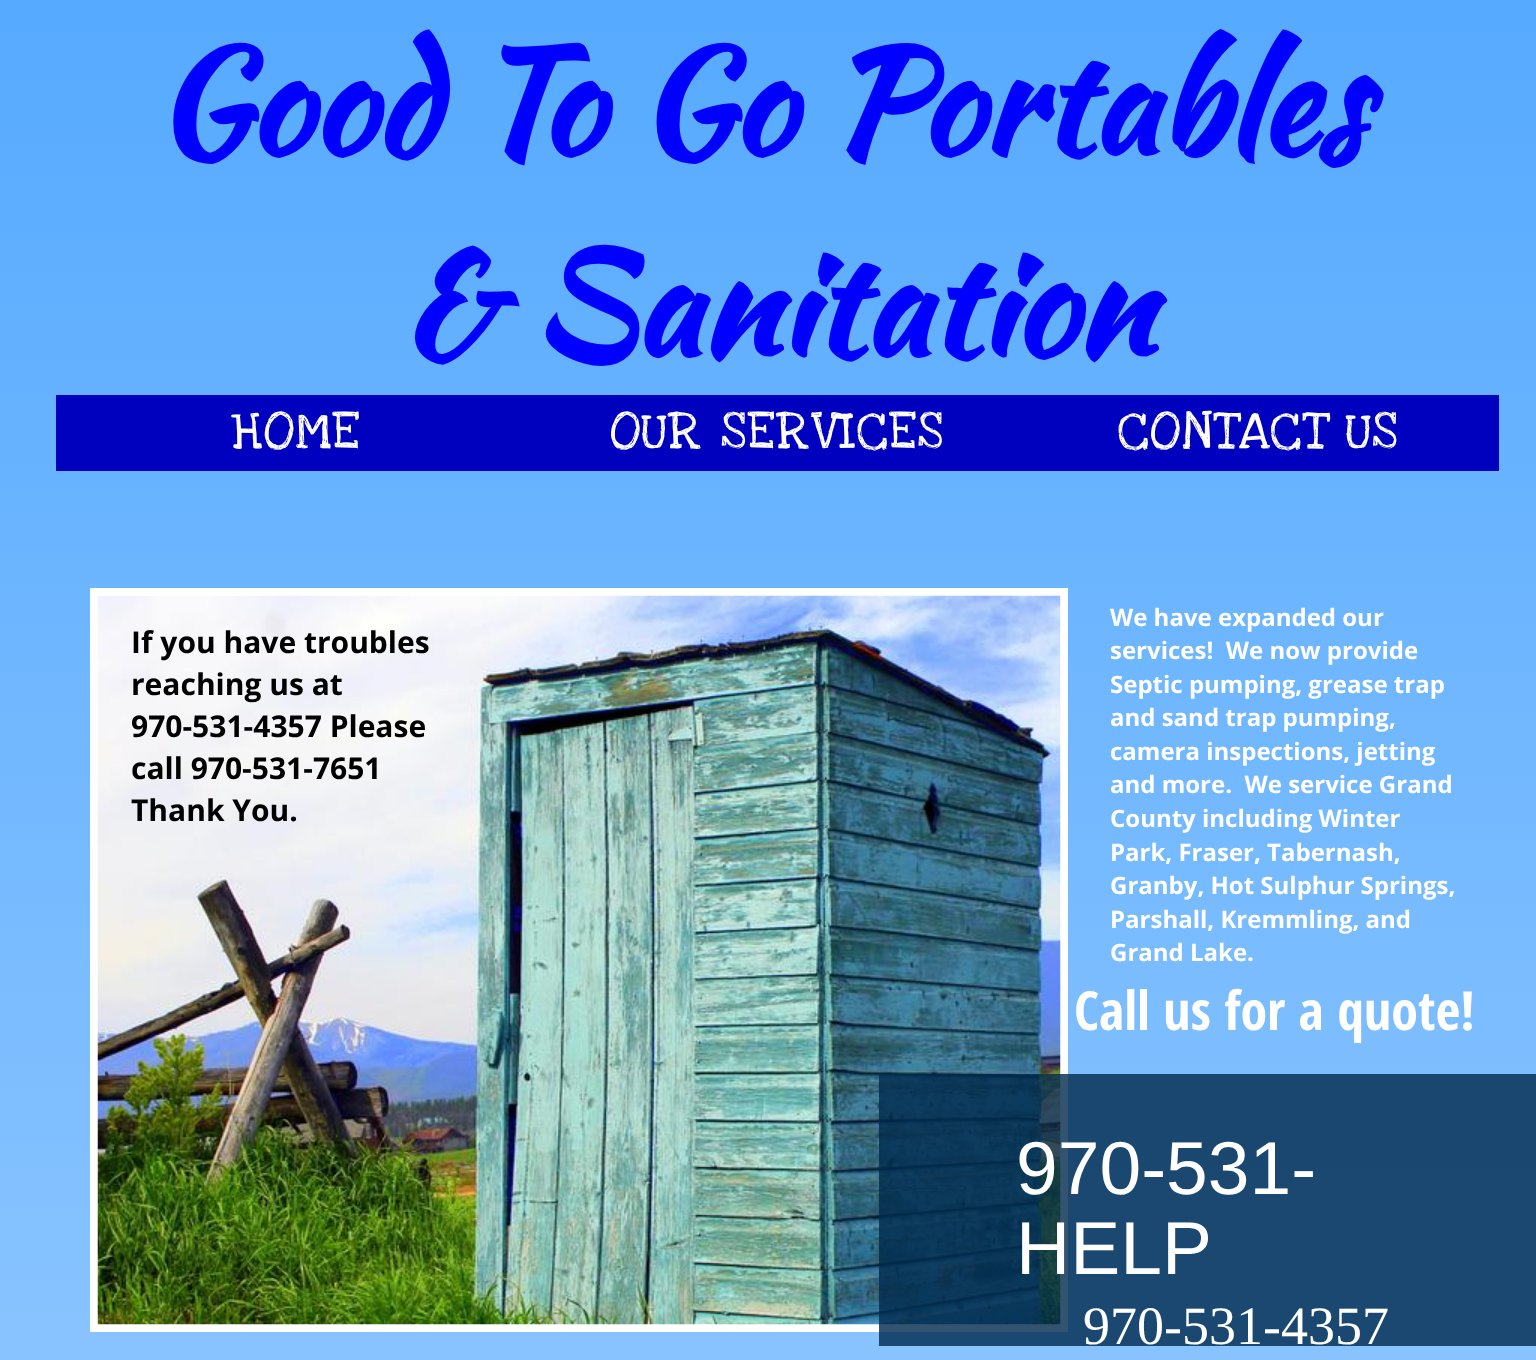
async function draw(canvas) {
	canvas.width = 1536;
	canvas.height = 1360;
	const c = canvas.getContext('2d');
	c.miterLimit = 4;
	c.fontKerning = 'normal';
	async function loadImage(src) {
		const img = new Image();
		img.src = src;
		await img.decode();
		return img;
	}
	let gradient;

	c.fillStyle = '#fff';
	c.fillRect(0, 0, 1536, 1360);
	gradient = c.createLinearGradient(900, 0, 900, 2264);
	gradient.addColorStop(0, '#56aaff');
	gradient.addColorStop(1, '#aad4ff');
	c.fillStyle = gradient;
	c.fillRect(0, 0, 1536, 1360);
	c.font = 'bold 144px Kaushan Script';
	c.fillStyle = '#00f';
	c.fillText('Good To Go Portables', 153, 153);
	c.fillText('& Sanitation', 401, 355);
	c.fillStyle = '#0000bf';
	c.fillRect(56, 395, 1443, 76);
	c.letterSpacing = '1.5px';
	c.font = '54px Love Ya Like A Sister';
	c.fillStyle = '#fff';
	for (const [text, x, y] of [
		['HOME', 231, 448],
		['OUR SERVICES', 610, 448],
		['CONTACT US', 1118, 448],
	]) {
		c.fillText(text, x, y);
	}
	c.strokeStyle = '#fff';
	c.lineWidth = 8;
	c.strokeRect(94, 592, 970, 736);
	c.drawImage(await loadImage('img1.png'), 97, 595, 964, 730);
	c.letterSpacing = '0px';
	c.font = 'bold 24px Open Sans';
	for (const [text, x, y] of [
		['We have expanded our', 1110, 626],
		['services!  We now provide', 1110, 659],
		['Septic pumping, grease trap', 1110, 693],
		['and sand trap pumping,', 1110, 726],
		['camera inspections, jetting', 1110, 760],
		['and more.  We service Grand', 1110, 793],
		['County including Winter', 1110, 827],
		['Park, Fraser, Tabernash,', 1110, 861],
		['Granby, Hot Sulphur Springs,', 1110, 894],
		['Parshall, Kremmling, and', 1110, 928],
		['Grand Lake.', 1110, 961],
	]) {
		c.fillText(text, x, y);
	}
	c.font = 'bold 30px Open Sans';
	c.fillStyle = '#000';
	for (const [text, x, y] of [
		['If you have troubles', 131, 653],
		['reaching us at', 131, 695],
		['970-531-4357 Please', 131, 737],
		['call 970-531-7651', 131, 779],
		['Thank You.', 131, 821],
	]) {
		c.fillText(text, x, y);
	}
	c.font = 'bold 54px Open Sans Condensed';
	c.fillStyle = '#fff';
	c.fillText('Call us for a quote!', 1074, 1030);
	c.fillStyle = '#00294ccc';
	c.fillRect(879, 1074, 657, 272);
	c.font = '75px Liberation Sans';
	c.fillStyle = '#fff';
	c.fillText('970-531-', 1016, 1194);
	c.fillText('HELP', 1016, 1274);
	c.font = '54px Liberation Serif';
	c.fillText('970-531-4357', 1083, 1344);
}

draw(document.querySelector('canvas'));
